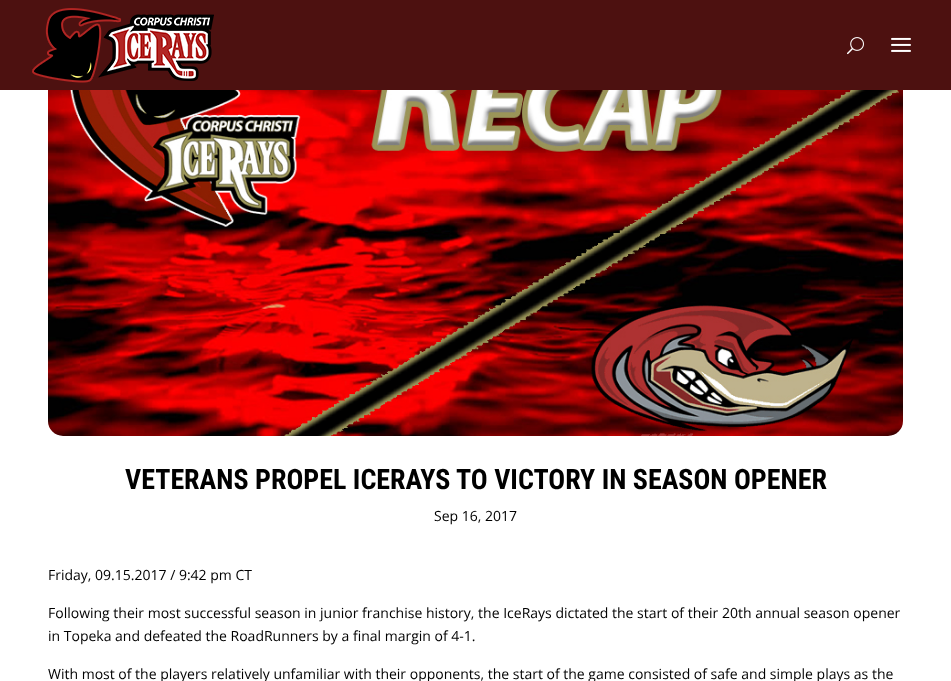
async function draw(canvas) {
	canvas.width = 951;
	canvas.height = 681;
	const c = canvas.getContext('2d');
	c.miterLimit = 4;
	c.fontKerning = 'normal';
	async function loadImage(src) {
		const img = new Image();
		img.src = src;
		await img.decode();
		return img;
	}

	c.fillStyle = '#fff';
	c.fillRect(0, 0, 951, 681);
	c.fillStyle = '#4d1110';
	c.fillRect(0, 0, 951, 90);
	c.drawImage(await loadImage('img1.png'), 32, 8, 182, 75);
	c.drawImage(await loadImage('img2.png'), 847, 37, 17, 18);
	c.drawImage(await loadImage('img3.png'), 891, 37, 20, 15);
	c.drawImage(await loadImage('img4.png'), 48, 90, 855, 346);
	c.font = 'bold 28px Roboto Condensed';
	c.fillStyle = '#000';
	c.fillText('VETERANS PROPEL ICERAYS TO VICTORY IN SEASON OPENER', 125, 489);
	c.font = '14px Open Sans';
	for (const [text, x, y] of [
		['Sep 16, 2017', 434, 521],
		['Friday, 09.15.2017 / 9:42 pm CT', 48, 580],
		['Following their most successful season in junior franchise history, the IceRays dictated the start of their 20th annual season opener', 48, 618],
		['in Topeka and defeated the RoadRunners by a final margin of 4-1.', 48, 641],
		['With most of the players relatively unfamiliar with their opponents, the start of the game consisted of safe and simple plays as the', 48, 679],
	]) {
		c.fillText(text, x, y);
	}
}

draw(document.querySelector('canvas'));
